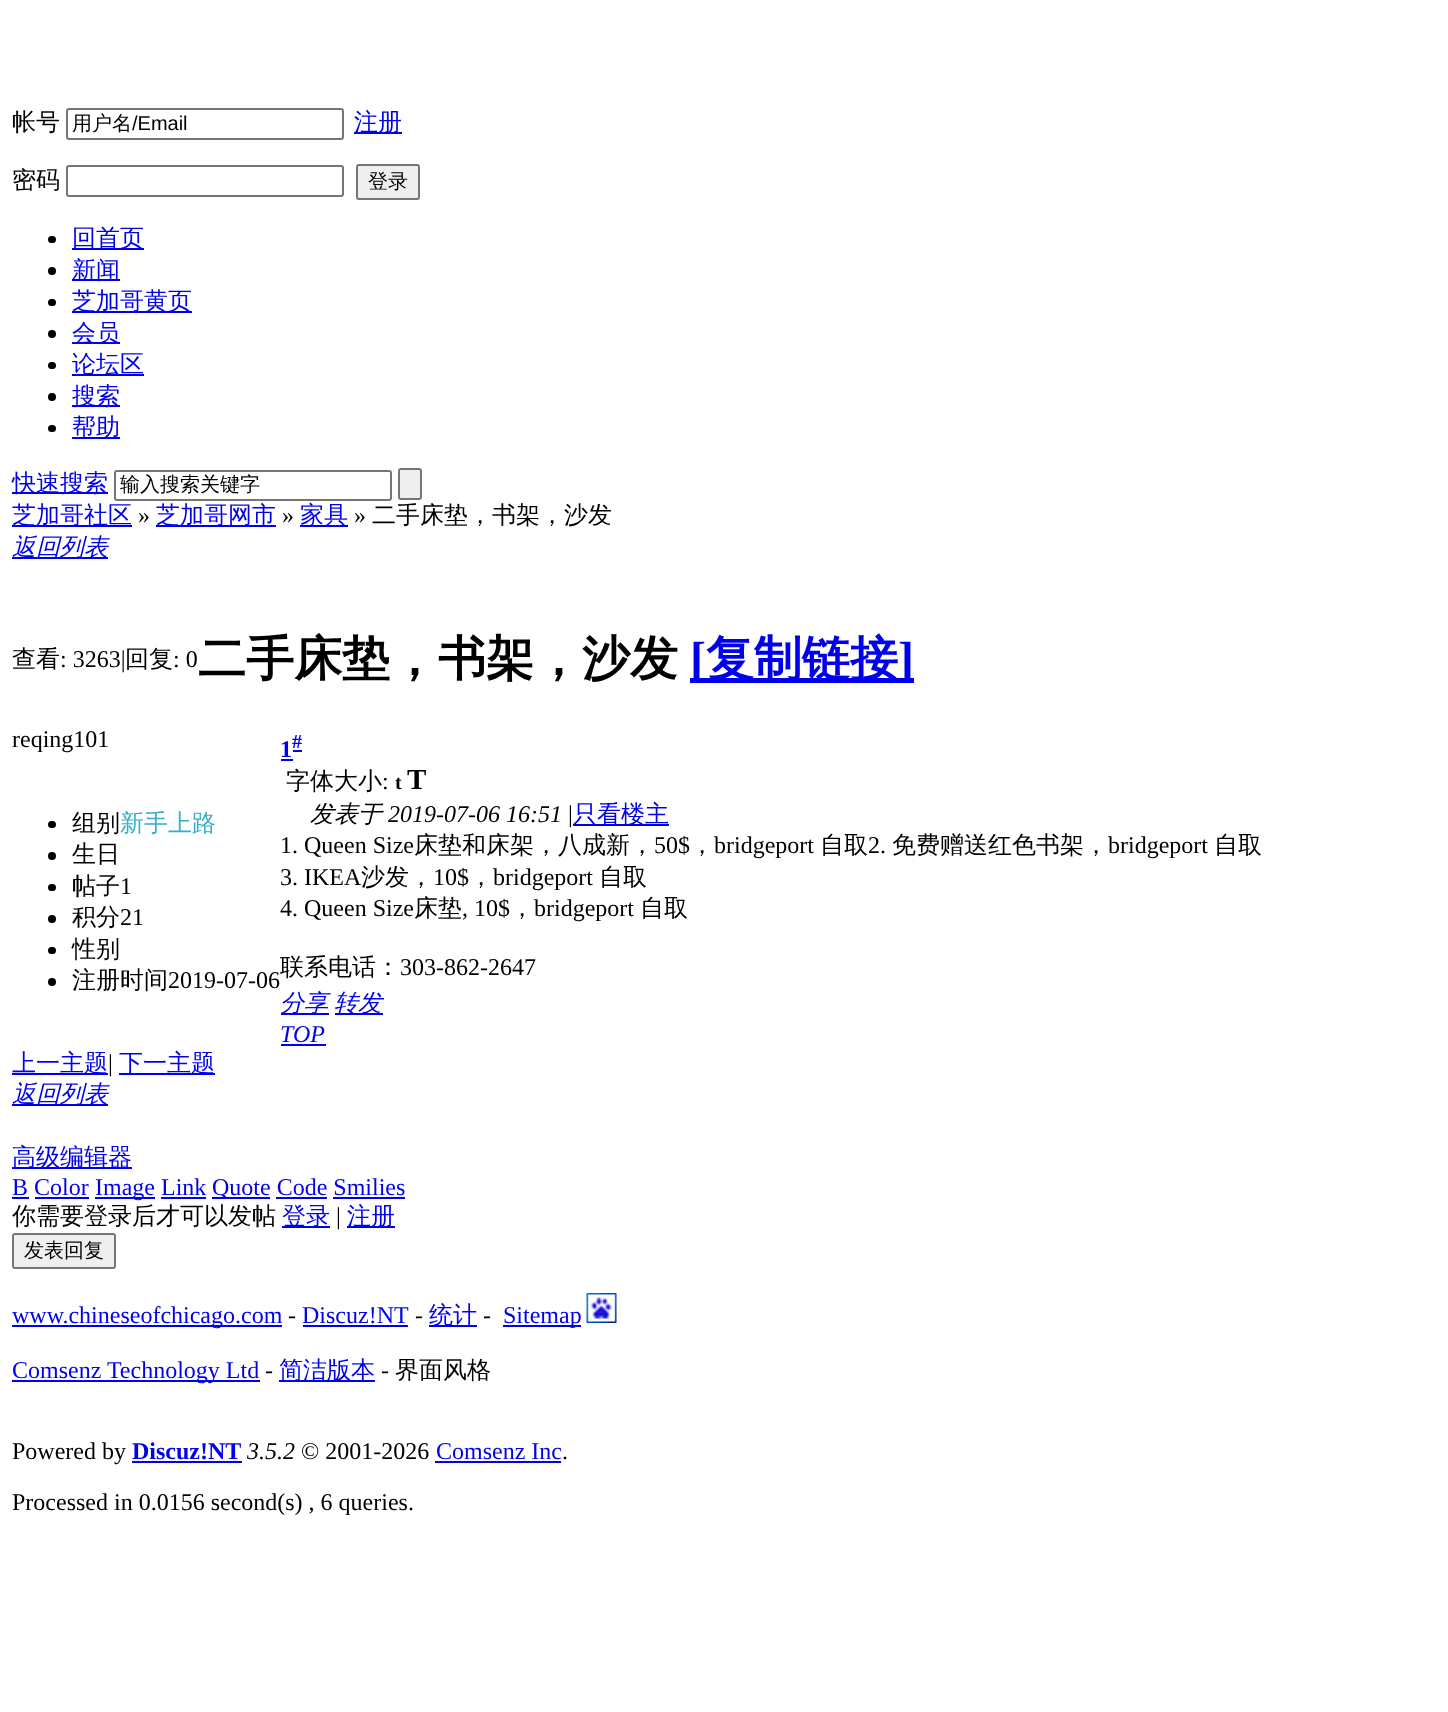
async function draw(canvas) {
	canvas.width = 1448;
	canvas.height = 1712;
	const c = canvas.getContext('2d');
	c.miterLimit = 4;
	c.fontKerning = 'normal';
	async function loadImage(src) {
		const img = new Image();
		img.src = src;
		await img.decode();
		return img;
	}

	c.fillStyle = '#fff';
	c.fillRect(0, 0, 1448, 1712);
	c.font = '500 24px WenQuanYi Zen Hei';
	c.fillStyle = '#000';
	c.fillText('帐号', 12, 130);
	c.beginPath();
	c.roundRect(67, 109, 276, 30, 2);
	c.strokeStyle = '#767676';
	c.lineWidth = 2;
	c.stroke();
	c.font = '500 20px WenQuanYi Zen Hei';
	c.fillText('用户名', 72, 130);
	c.font = '20px Liberation Sans';
	c.fillText('/Email', 132, 130);
	c.fillStyle = '#00e';
	c.fillRect(354, 132, 48, 2);
	c.font = '500 24px WenQuanYi Zen Hei';
	c.fillText('注册', 354, 130);
	c.fillStyle = '#000';
	c.fillText('密码', 12, 188);
	c.beginPath();
	c.roundRect(67, 166, 276, 30, 2);
	c.stroke();
	c.fillStyle = '#efefef';
	c.beginPath();
	c.roundRect(357, 165, 62, 34, 2);
	c.fill();
	c.stroke();
	c.font = '500 20px WenQuanYi Zen Hei';
	c.fillStyle = '#000';
	c.fillText('登录', 368, 188);
	c.beginPath();
	c.roundRect(48, 236, 8, 7, 3.5);
	c.fill();
	c.fillStyle = '#00e';
	c.fillRect(72, 248, 72, 2);
	c.font = '500 24px WenQuanYi Zen Hei';
	c.fillText('回首页', 72, 246);
	c.fillStyle = '#000';
	c.beginPath();
	c.arc(52, 271, 4, 0, 2 * Math.PI);
	c.fill();
	c.fillStyle = '#00e';
	c.fillRect(72, 279, 48, 2);
	c.fillText('新闻', 72, 278);
	c.fillStyle = '#000';
	c.beginPath();
	c.roundRect(48, 299, 8, 7, 3.5);
	c.fill();
	c.fillStyle = '#00e';
	c.fillRect(72, 311, 120, 2);
	c.fillText('芝加哥黄页', 72, 309);
	c.fillStyle = '#000';
	c.beginPath();
	c.arc(52, 334, 4, 0, 2 * Math.PI);
	c.fill();
	c.fillStyle = '#00e';
	c.fillRect(72, 342, 48, 2);
	c.fillText('会员', 72, 341);
	c.fillStyle = '#000';
	c.beginPath();
	c.roundRect(48, 362, 8, 7, 3.5);
	c.fill();
	c.fillStyle = '#00e';
	c.fillRect(72, 374, 72, 2);
	c.fillText('论坛区', 72, 372);
	c.fillStyle = '#000';
	c.beginPath();
	c.arc(52, 397, 4, 0, 2 * Math.PI);
	c.fill();
	c.fillStyle = '#00e';
	c.fillRect(72, 405, 48, 2);
	c.fillText('搜索', 72, 404);
	c.fillStyle = '#000';
	c.beginPath();
	c.roundRect(48, 425, 8, 7, 3.5);
	c.fill();
	c.fillStyle = '#00e';
	c.fillRect(72, 437, 48, 2);
	c.fillText('帮助', 72, 435);
	c.fillRect(12, 492, 96, 2);
	c.fillText('快速搜索', 12, 491);
	c.beginPath();
	c.roundRect(115, 471, 276, 29, 2);
	c.stroke();
	c.font = '500 20px WenQuanYi Zen Hei';
	c.fillStyle = '#000';
	c.fillText('输入搜索关键字', 120, 491);
	c.fillStyle = '#efefef';
	c.beginPath();
	c.roundRect(399, 469, 22, 30, 2);
	c.fill();
	c.stroke();
	c.fillStyle = '#00e';
	c.fillRect(12, 525, 120, 2);
	c.font = '500 24px WenQuanYi Zen Hei';
	c.fillText('芝加哥社区', 12, 523);
	c.font = '24px Liberation Serif';
	c.fillStyle = '#000';
	c.fillText('»', 138, 523);
	c.fillStyle = '#00e';
	c.fillRect(156, 525, 120, 2);
	c.font = '500 24px WenQuanYi Zen Hei';
	c.fillText('芝加哥网市', 156, 523);
	c.font = '24px Liberation Serif';
	c.fillStyle = '#000';
	c.fillText('»', 282, 523);
	c.fillStyle = '#00e';
	c.fillRect(300, 525, 48, 2);
	c.font = '500 24px WenQuanYi Zen Hei';
	c.fillText('家具', 300, 523);
	c.font = '24px Liberation Serif';
	c.fillStyle = '#000';
	c.fillText('»', 354, 523);
	c.font = '500 24px WenQuanYi Zen Hei';
	c.fillText('二手床垫，书架，沙发', 372, 523);
	c.fillStyle = '#00e';
	c.fillRect(12, 557, 96, 2);
	c.font = 'italic 500 24px WenQuanYi Zen Hei';
	c.fillText('返回列表', 12, 555);
	c.font = '500 24px WenQuanYi Zen Hei';
	c.fillStyle = '#000';
	c.fillText('查看', 12, 667);
	c.font = '24px Liberation Serif';
	c.fillText(': 3263|', 60, 667);
	c.font = '500 24px WenQuanYi Zen Hei';
	c.fillText('回复', 125, 667);
	c.font = '24px Liberation Serif';
	c.fillText(': 0', 173, 667);
	c.font = 'bold 48px WenQuanYi Zen Hei';
	c.fillText('二手床垫，书架，沙发', 198, 675);
	c.fillStyle = '#00e';
	c.fillRect(690, 678, 224, 5);
	c.font = 'bold 48px Liberation Serif';
	c.fillText('[', 690, 675);
	c.font = 'bold 48px WenQuanYi Zen Hei';
	c.fillText('复制链接', 706, 675);
	c.font = 'bold 48px Liberation Serif';
	c.fillText(']', 898, 675);
	c.font = '24px Liberation Serif';
	c.fillStyle = '#000';
	c.fillText('reqing101', 12, 747);
	c.beginPath();
	c.roundRect(48, 821, 8, 7, 3.5);
	c.fill();
	c.font = '500 24px WenQuanYi Zen Hei';
	c.fillText('组别', 72, 831);
	c.fillStyle = '#33aecc';
	c.fillText('新手上路', 120, 831);
	c.fillStyle = '#000';
	c.beginPath();
	c.arc(52, 856, 4, 0, 2 * Math.PI);
	c.fill();
	c.fillText('生日', 72, 862);
	c.beginPath();
	c.roundRect(48, 884, 8, 7, 3.5);
	c.fill();
	c.fillText('帖子', 72, 894);
	c.font = '24px Liberation Serif';
	c.fillText('1', 120, 894);
	c.beginPath();
	c.arc(52, 919, 4, 0, 2 * Math.PI);
	c.fill();
	c.font = '500 24px WenQuanYi Zen Hei';
	c.fillText('积分', 72, 925);
	c.font = '24px Liberation Serif';
	c.fillText('21', 120, 925);
	c.beginPath();
	c.roundRect(48, 947, 8, 7, 3.5);
	c.fill();
	c.font = '500 24px WenQuanYi Zen Hei';
	c.fillText('性别', 72, 957);
	c.beginPath();
	c.arc(52, 982, 4, 0, 2 * Math.PI);
	c.fill();
	c.fillText('注册时间', 72, 988);
	c.font = '24px Liberation Serif';
	c.fillText('2019-07-06', 168, 988);
	c.font = 'bold 24px Liberation Serif';
	c.fillStyle = '#00e';
	c.fillText('1', 280, 757);
	c.fillRect(281, 759, 12, 2);
	c.fillRect(293, 750, 9, 2);
	c.font = 'bold 20px Liberation Serif';
	c.fillText('#', 292, 748);
	c.font = '500 24px WenQuanYi Zen Hei';
	c.fillStyle = '#000';
	c.fillText('字体大小', 286, 789);
	c.font = '24px Liberation Serif';
	c.fillText(':', 382, 789);
	c.font = 'bold 20px Liberation Serif';
	c.fillText('t', 395, 789);
	c.font = 'bold 29px Liberation Serif';
	c.fillText('T', 407, 789);
	c.font = 'italic 500 24px WenQuanYi Zen Hei';
	c.fillText('发表于', 310, 822);
	c.font = 'italic 24px Liberation Serif';
	c.fillText('2019-07-06 16:51', 388, 822);
	c.font = '24px Liberation Serif';
	c.fillText('|', 568, 822);
	c.fillStyle = '#00e';
	c.fillRect(573, 824, 96, 2);
	c.font = '500 24px WenQuanYi Zen Hei';
	c.fillText('只看楼主', 573, 822);
	c.font = '24px Liberation Serif';
	c.fillStyle = '#000';
	c.fillText('1. Queen Size', 280, 853);
	c.font = '500 24px WenQuanYi Zen Hei';
	c.fillText('床垫和床架，八成新，', 414, 853);
	c.font = '24px Liberation Serif';
	c.fillText('50$', 654, 853);
	c.font = '500 24px WenQuanYi Zen Hei';
	c.fillText('，', 690, 853);
	c.font = '24px Liberation Serif';
	c.fillText('bridgeport', 714, 853);
	c.font = '500 24px WenQuanYi Zen Hei';
	c.fillText('自取', 820, 853);
	c.font = '24px Liberation Serif';
	c.fillText('2.', 868, 853);
	c.font = '500 24px WenQuanYi Zen Hei';
	c.fillText('免费赠送红色书架，', 892, 853);
	c.font = '24px Liberation Serif';
	c.fillText('bridgeport', 1108, 853);
	c.font = '500 24px WenQuanYi Zen Hei';
	c.fillText('自取', 1214, 853);
	c.font = '24px Liberation Serif';
	c.fillText('3. IKEA', 280, 885);
	c.font = '500 24px WenQuanYi Zen Hei';
	c.fillText('沙发，', 361, 885);
	c.font = '24px Liberation Serif';
	c.fillText('10$', 433, 885);
	c.font = '500 24px WenQuanYi Zen Hei';
	c.fillText('，', 469, 885);
	c.font = '24px Liberation Serif';
	c.fillText('bridgeport', 493, 885);
	c.font = '500 24px WenQuanYi Zen Hei';
	c.fillText('自取', 599, 885);
	c.font = '24px Liberation Serif';
	c.fillText('4. Queen Size', 280, 916);
	c.font = '500 24px WenQuanYi Zen Hei';
	c.fillText('床垫', 414, 916);
	c.font = '24px Liberation Serif';
	c.fillText(', 10$', 462, 916);
	c.font = '500 24px WenQuanYi Zen Hei';
	c.fillText('，', 510, 916);
	c.font = '24px Liberation Serif';
	c.fillText('bridgeport', 534, 916);
	c.font = '500 24px WenQuanYi Zen Hei';
	c.fillText('自取', 640, 916);
	c.fillText('联系电话：', 280, 975);
	c.font = '24px Liberation Serif';
	c.fillText('303-862-2647', 400, 975);
	c.fillStyle = '#00e';
	c.fillRect(281, 1013, 48, 2);
	c.font = 'italic 500 24px WenQuanYi Zen Hei';
	c.fillText('分享', 280, 1011);
	c.fillRect(335, 1013, 48, 2);
	c.fillText('转发', 334, 1011);
	c.font = 'italic 24px Liberation Serif';
	c.fillText('TOP', 280, 1042);
	c.fillRect(281, 1044, 45, 2);
	c.fillRect(12, 1073, 96, 2);
	c.font = '500 24px WenQuanYi Zen Hei';
	c.fillText('上一主题', 12, 1071);
	c.font = '24px Liberation Serif';
	c.fillStyle = '#000';
	c.fillText('|', 108, 1071);
	c.fillStyle = '#00e';
	c.fillRect(119, 1073, 96, 2);
	c.font = '500 24px WenQuanYi Zen Hei';
	c.fillText('下一主题', 119, 1071);
	c.fillRect(12, 1104, 96, 2);
	c.font = 'italic 500 24px WenQuanYi Zen Hei';
	c.fillText('返回列表', 12, 1102);
	c.fillRect(12, 1167, 120, 2);
	c.font = '500 24px WenQuanYi Zen Hei';
	c.fillText('高级编辑器', 12, 1165);
	c.font = '24px Liberation Serif';
	c.fillText('B Color', 12, 1195);
	c.fillRect(12, 1197, 17, 2);
	c.fillRect(95, 1197, 60, 2);
	c.fillText('Image Link', 95, 1195);
	c.fillRect(212, 1197, 58, 2);
	c.fillText('Quote Code Smilies', 212, 1195);
	for (const [x, y, w, h, color] of [
		[35, 1197, 54, 2, '#00e'],
		[161, 1197, 45, 2, '#00e'],
		[276, 1197, 51, 2, '#00e'],
		[333, 1197, 72, 2, '#00e'],
	]) {
		c.fillStyle = color;
		c.fillRect(x, y, w, h);
	}
	c.font = '500 24px WenQuanYi Zen Hei';
	c.fillStyle = '#000';
	c.fillText('你需要登录后才可以发帖', 12, 1224);
	c.fillStyle = '#00e';
	c.fillRect(282, 1226, 48, 2);
	c.fillText('登录', 282, 1224);
	c.font = '24px Liberation Serif';
	c.fillStyle = '#000';
	c.fillText('|', 336, 1224);
	c.fillStyle = '#00e';
	c.fillRect(347, 1226, 48, 2);
	c.font = '500 24px WenQuanYi Zen Hei';
	c.fillText('注册', 347, 1224);
	c.fillStyle = '#efefef';
	c.beginPath();
	c.roundRect(13, 1234, 102, 34, 2);
	c.fill();
	c.stroke();
	c.font = '500 20px WenQuanYi Zen Hei';
	c.fillStyle = '#000';
	c.fillText('发表回复', 24, 1257);
	c.fillStyle = '#00e';
	c.fillRect(12, 1325, 270, 2);
	c.font = '24px Liberation Serif';
	c.fillText('www.chineseofchicago.com', 12, 1323);
	c.fillStyle = '#000';
	c.fillText('-', 288, 1323);
	c.fillStyle = '#00e';
	c.fillText('Discuz!NT', 302, 1323);
	c.fillRect(303, 1325, 105, 2);
	c.fillStyle = '#000';
	c.fillText('-', 415, 1323);
	c.fillStyle = '#00e';
	c.fillRect(429, 1325, 48, 2);
	c.font = '500 24px WenQuanYi Zen Hei';
	c.fillText('统计', 429, 1323);
	c.font = '24px Liberation Serif';
	c.fillStyle = '#000';
	c.fillText('-', 483, 1323);
	c.fillStyle = '#00e';
	c.fillRect(503, 1325, 78, 2);
	c.fillText('Sitemap', 503, 1323);
	c.drawImage(await loadImage('img1.png'), 586, 1293, 31, 30);
	c.fillRect(12, 1380, 248, 2);
	c.fillText('Comsenz Technology Ltd', 12, 1378);
	c.fillStyle = '#000';
	c.fillText('-', 265, 1378);
	c.fillStyle = '#00e';
	c.fillRect(279, 1380, 96, 2);
	c.font = '500 24px WenQuanYi Zen Hei';
	c.fillText('简洁版本', 279, 1378);
	c.font = '24px Liberation Serif';
	c.fillStyle = '#000';
	c.fillText('-', 381, 1378);
	c.font = '500 24px WenQuanYi Zen Hei';
	c.fillText('界面风格', 395, 1378);
	c.font = '24px Liberation Serif';
	c.fillText('Powered by', 12, 1459);
	c.font = 'bold 24px Liberation Serif';
	c.fillStyle = '#00e';
	c.fillText('Discuz!NT', 132, 1459);
	c.fillRect(132, 1461, 110, 2);
	c.font = 'italic 24px Liberation Serif';
	c.fillStyle = '#000';
	c.fillText('3.5.2', 247, 1459);
	c.font = '24px Liberation Serif';
	c.fillText('© 2001-2026', 301, 1459);
	c.fillStyle = '#00e';
	c.fillText('Comsenz Inc', 436, 1459);
	c.fillRect(435, 1461, 126, 2);
	c.fillStyle = '#000';
	c.fillText('.', 562, 1459);
	c.fillText('Processed in 0.0156 second(s) , 6 queries.', 12, 1510);
}

draw(document.querySelector('canvas'));
